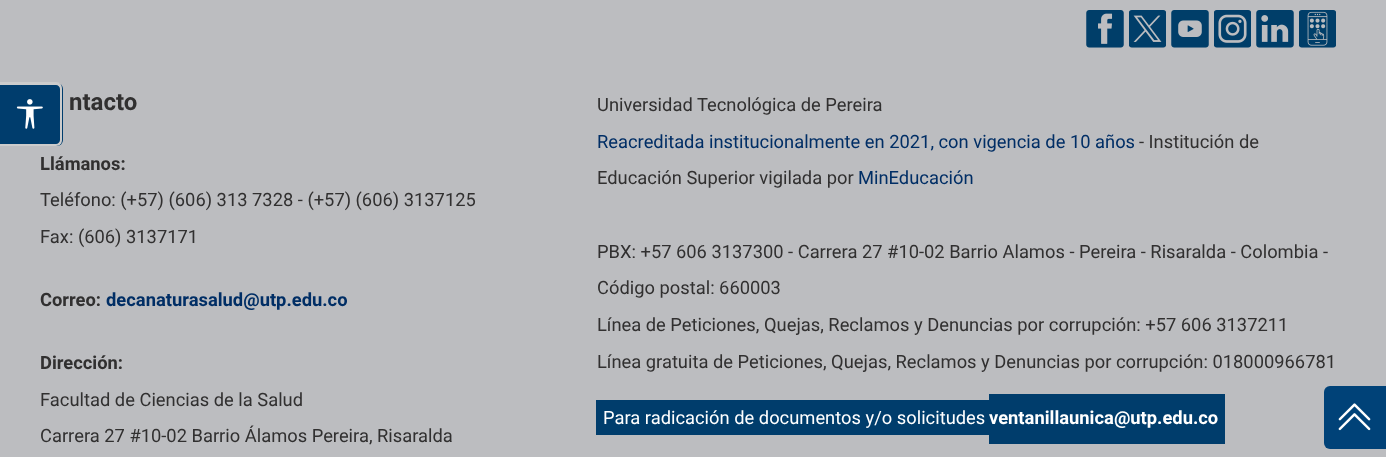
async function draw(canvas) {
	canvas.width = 1386;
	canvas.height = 457;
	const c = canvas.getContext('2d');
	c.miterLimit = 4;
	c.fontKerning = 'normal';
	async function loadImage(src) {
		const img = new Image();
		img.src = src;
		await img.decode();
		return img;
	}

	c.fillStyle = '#bcbdc0';
	c.fillRect(0, 0, 1386, 457);
	c.fillStyle = '#003d6d';
	c.beginPath();
	c.roundRect(0, 83, 63, 63, [0, 6, 6, 0]);
	c.fill();
	c.fillStyle = '#ccc';
	c.beginPath();
	c.moveTo(0, 82);
	c.lineTo(56, 82);
	c.bezierCurveTo(60, 82, 62, 85, 62, 89);
	c.lineTo(62, 140);
	c.bezierCurveTo(62, 143, 60, 146, 56, 146);
	c.lineTo(0, 146);
	c.closePath();
	c.moveTo(0, 85);
	c.lineTo(56, 85);
	c.bezierCurveTo(58, 85, 60, 87, 60, 89);
	c.lineTo(60, 140);
	c.bezierCurveTo(60, 142, 58, 144, 56, 144);
	c.lineTo(0, 144);
	c.closePath();
	c.fill('evenodd');
	c.drawImage(await loadImage('img1.png'), 16, 99, 27, 30);
	c.drawImage(await loadImage('img2.png'), 1086, 10, 38, 38);
	c.drawImage(await loadImage('img3.png'), 1129, 10, 37, 38);
	c.drawImage(await loadImage('img4.png'), 1171, 10, 38, 38);
	c.drawImage(await loadImage('img5.png'), 1214, 10, 37, 38);
	c.drawImage(await loadImage('img6.png'), 1256, 10, 38, 38);
	c.drawImage(await loadImage('img7.png'), 1299, 10, 37, 38);
	c.font = 'bold 24px Roboto';
	c.fillStyle = '#313030';
	c.fillText('ntacto', 69, 110);
	c.font = 'bold 18.35px Roboto';
	c.fillText('Llámanos:', 40, 170);
	c.font = '18.35px Roboto';
	c.fillText('Teléfono: (+57) (606) 313 7328 - (+57) (606) 3137125', 40, 206);
	c.fillText('Fax: (606) 3137171', 40, 243);
	c.font = 'bold 18.35px Roboto';
	c.fillText('Correo:', 40, 306);
	c.fillStyle = '#002e65';
	c.fillText('decanaturasalud@utp.edu.co', 106, 306);
	c.fillStyle = '#313030';
	c.fillText('Dirección:', 40, 369);
	c.font = '18.35px Roboto';
	for (const [text, x, y] of [
		['Facultad de Ciencias de la Salud', 40, 406],
		['Carrera 27 #10-02 Barrio Álamos Pereira, Risaralda', 40, 442],
		['Universidad Tecnológica de Pereira', 597, 111],
	]) {
		c.fillText(text, x, y);
	}
	c.fillStyle = '#002e65';
	c.fillText('Reacreditada institucionalmente en 2021, con vigencia de 10 años', 597, 148);
	c.fillStyle = '#313030';
	c.fillText('- Institución de', 1139, 148);
	c.fillText('Educación Superior vigilada por', 597, 184);
	c.fillStyle = '#002e65';
	c.fillText('MinEducación', 858, 184);
	c.fillStyle = '#313030';
	for (const [text, x, y] of [
		['PBX: +57 606 3137300 - Carrera 27 #10-02 Barrio Alamos - Pereira - Risaralda - Colombia -', 597, 258],
		['Código postal: 660003', 597, 294],
		['Línea de Peticiones, Quejas, Reclamos y Denuncias por corrupción: +57 606 3137211', 597, 331],
		['Línea gratuita de Peticiones, Quejas, Reclamos y Denuncias por corrupción: 018000966781', 597, 368],
	]) {
		c.fillText(text, x, y);
	}
	c.fillStyle = '#003d6c';
	c.fillRect(596, 400, 393, 35);
	c.fillRect(989, 394, 236, 50);
	c.fillStyle = '#fff';
	c.fillText('Para radicación de documentos y/o solicitudes', 603, 424);
	c.font = 'bold 18.35px Roboto';
	c.fillText('ventanillaunica@utp.edu.co', 989, 424);
	c.fillStyle = '#004278';
	c.beginPath();
	c.roundRect(1324, 386, 62, 63, [6, 0, 0, 6]);
	c.fill();
	c.drawImage(await loadImage('img8.png'), 1338, 403, 33, 28);
}

draw(document.querySelector('canvas'));
